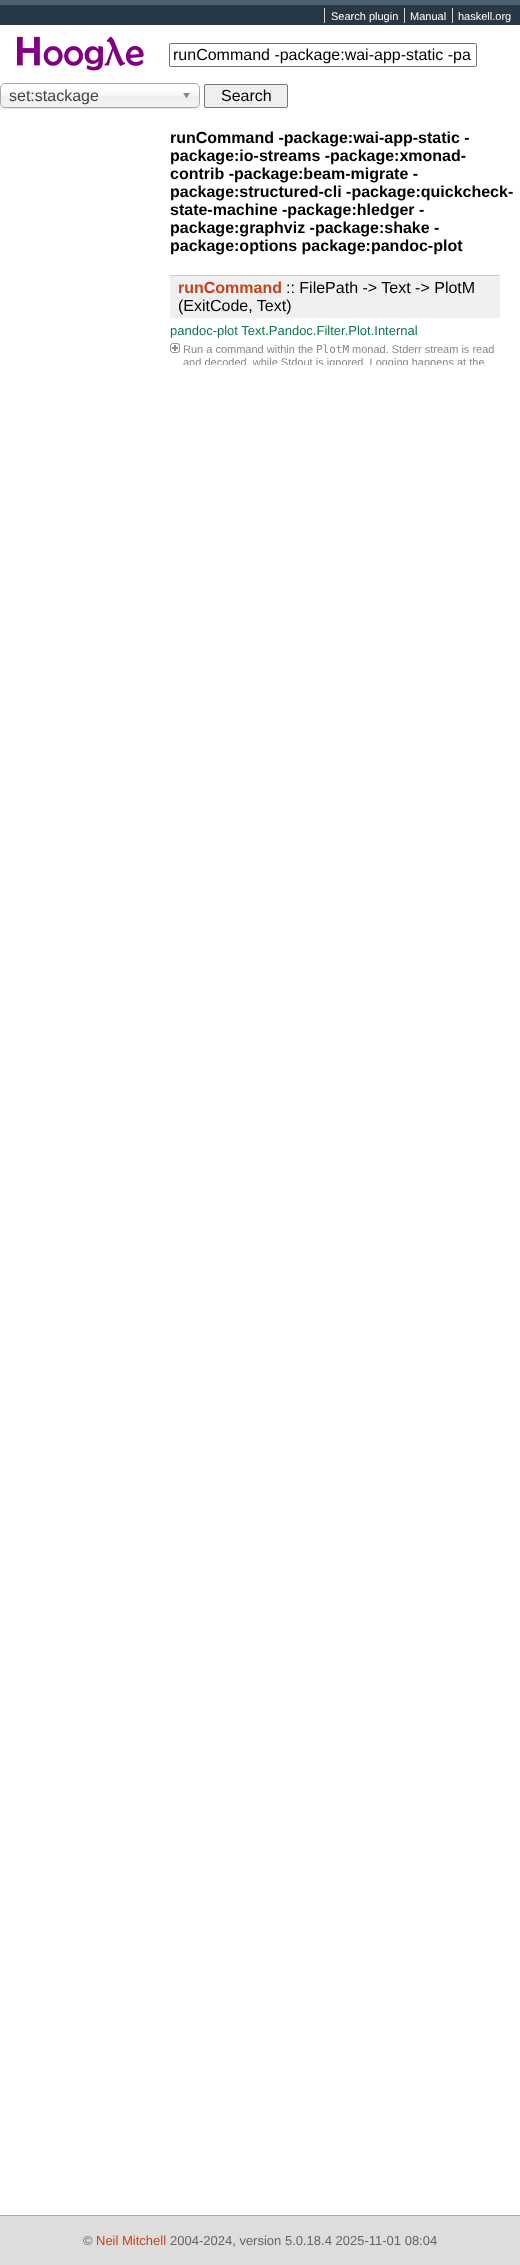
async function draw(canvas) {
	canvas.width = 520;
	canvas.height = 2265;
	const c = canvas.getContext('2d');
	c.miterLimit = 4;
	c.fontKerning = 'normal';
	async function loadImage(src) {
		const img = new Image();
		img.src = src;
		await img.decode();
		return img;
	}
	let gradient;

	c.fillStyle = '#fff';
	c.fillRect(0, 0, 520, 2265);
	c.fillStyle = '#293845';
	c.fillRect(0, 5, 520, 20);
	c.fillStyle = '#4e6272';
	c.fillRect(0, 0, 520, 5);
	c.font = '11px Liberation Sans';
	c.fillStyle = '#fff';
	c.fillText('Search plugin', 331, 20);
	c.fillStyle = '#d5d5d5';
	c.fillRect(324, 8, 1, 15);
	c.fillStyle = '#fff';
	c.fillText('Manual', 410, 20);
	c.fillStyle = '#d5d5d5';
	c.fillRect(404, 8, 1, 15);
	c.fillStyle = '#fff';
	c.fillText('haskell.org', 458, 20);
	c.fillStyle = '#d5d5d5';
	c.fillRect(452, 8, 1, 15);
	c.drawImage(await loadImage('img1.png'), 16, 36, 128, 35);
	c.beginPath();
	c.roundRect(169.5, 43.5, 307, 23, 1.5);
	c.strokeStyle = '#767676';
	c.stroke();
	c.font = '16px Liberation Sans';
	c.fillStyle = '#000';
	c.fillText('runCommand -package:wai-app-static -pa', 173, 60);
	c.save();
	c.beginPath();
	c.moveTo(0, 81);
	c.lineTo(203, 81);
	c.lineTo(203, 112);
	c.lineTo(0, 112);
	c.closePath();
	c.moveTo(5, 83);
	c.lineTo(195, 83);
	c.bezierCurveTo(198, 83, 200, 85, 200, 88);
	c.lineTo(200, 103);
	c.bezierCurveTo(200, 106, 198, 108, 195, 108);
	c.lineTo(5, 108);
	c.bezierCurveTo(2, 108, 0, 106, 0, 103);
	c.lineTo(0, 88);
	c.bezierCurveTo(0, 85, 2, 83, 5, 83);
	c.closePath();
	c.clip('evenodd');
	c.fillStyle = '#0000001a';
	c.filter = 'blur(0.5px)';
	c.beginPath();
	c.roundRect(0, 84, 200, 25, 5);
	c.fill();
	c.filter = 'none';
	c.restore();
	gradient = c.createLinearGradient(100, 84, 100, 107);
	gradient.addColorStop(0.2, '#fff');
	gradient.addColorStop(0.5, '#f6f6f6');
	gradient.addColorStop(0.52, '#eee');
	gradient.addColorStop(1, '#f4f4f4');
	c.fillStyle = gradient;
	c.beginPath();
	c.roundRect(1, 84, 198, 23, 4);
	c.fill();
	c.beginPath();
	c.roundRect(0.5, 83.5, 199, 24, 4.5);
	c.strokeStyle = '#aaa';
	c.stroke();
	c.fillStyle = '#444';
	c.fillText('set:stackage', 9, 101);
	c.drawImage(await loadImage('img2.png'), 183, 93, 7, 6);
	c.fillStyle = '#efefef';
	c.beginPath();
	c.roundRect(204.5, 84.5, 83, 23, 1.5);
	c.fill();
	c.strokeStyle = '#767676';
	c.stroke();
	c.fillStyle = '#000';
	c.fillText('Search', 221, 101);
	c.font = 'bold 16px Liberation Sans';
	for (const [text, x, y] of [
		['runCommand -package:wai-app-static -', 170, 143],
		['package:io-streams -package:xmonad-', 170, 161],
		['contrib -package:beam-migrate -', 170, 179],
		['package:structured-cli -package:quickcheck-', 170, 197],
		['state-machine -package:hledger -', 170, 215],
		['package:graphviz -package:shake -', 170, 233],
		['package:options package:pandoc-plot', 170, 251],
	]) {
		c.fillText(text, x, y);
	}
	c.fillStyle = '#f0f0f0';
	c.fillRect(170, 276, 330, 42);
	c.fillStyle = '#ccc';
	c.fillRect(170, 275, 330, 1);
	c.fillStyle = '#c4451d';
	c.fillText('runCommand', 178, 293);
	c.font = '16px Liberation Sans';
	c.fillStyle = '#000';
	c.fillText(':: FilePath -> Text -> PlotM', 286, 293);
	c.fillText('(ExitCode, Text)', 178, 311);
	c.font = '13px Liberation Sans';
	c.fillStyle = '#0e774a';
	c.fillText('pandoc-plot Text.Pandoc.Filter.Plot.Internal', 170, 335);
	c.drawImage(await loadImage('img3.png'), 170, 343, 10, 10);
	c.font = '11px Liberation Sans';
	c.fillStyle = '#888';
	c.fillText('Run a command within the', 183, 353);
	c.font = '11px DejaVu Sans Mono';
	c.fillText('PlotM', 316, 353);
	c.font = '11px Liberation Sans';
	c.fillText('monad. Stderr stream is read', 352, 353);
	c.save();
	c.beginPath();
	c.rect(170, 343, 330, 22);
	c.clip();
	c.fillText('and decoded, while Stdout is ignored. Logging happens at the', 183, 366);
	c.restore();
	c.fillStyle = '#ddd';
	c.fillRect(0, 2216, 520, 49);
	c.fillStyle = '#aaa';
	c.fillRect(0, 2215, 520, 1);
	c.font = '13px Liberation Sans';
	c.fillStyle = '#666';
	c.fillText('©', 83, 2245);
	c.fillStyle = '#c4451d';
	c.fillText('Neil Mitchell', 96, 2245);
	c.fillStyle = '#666';
	c.fillText('2004-2024, version 5.0.18.4 2025-11-01 08:04', 170, 2245);
}

draw(document.querySelector('canvas'));
